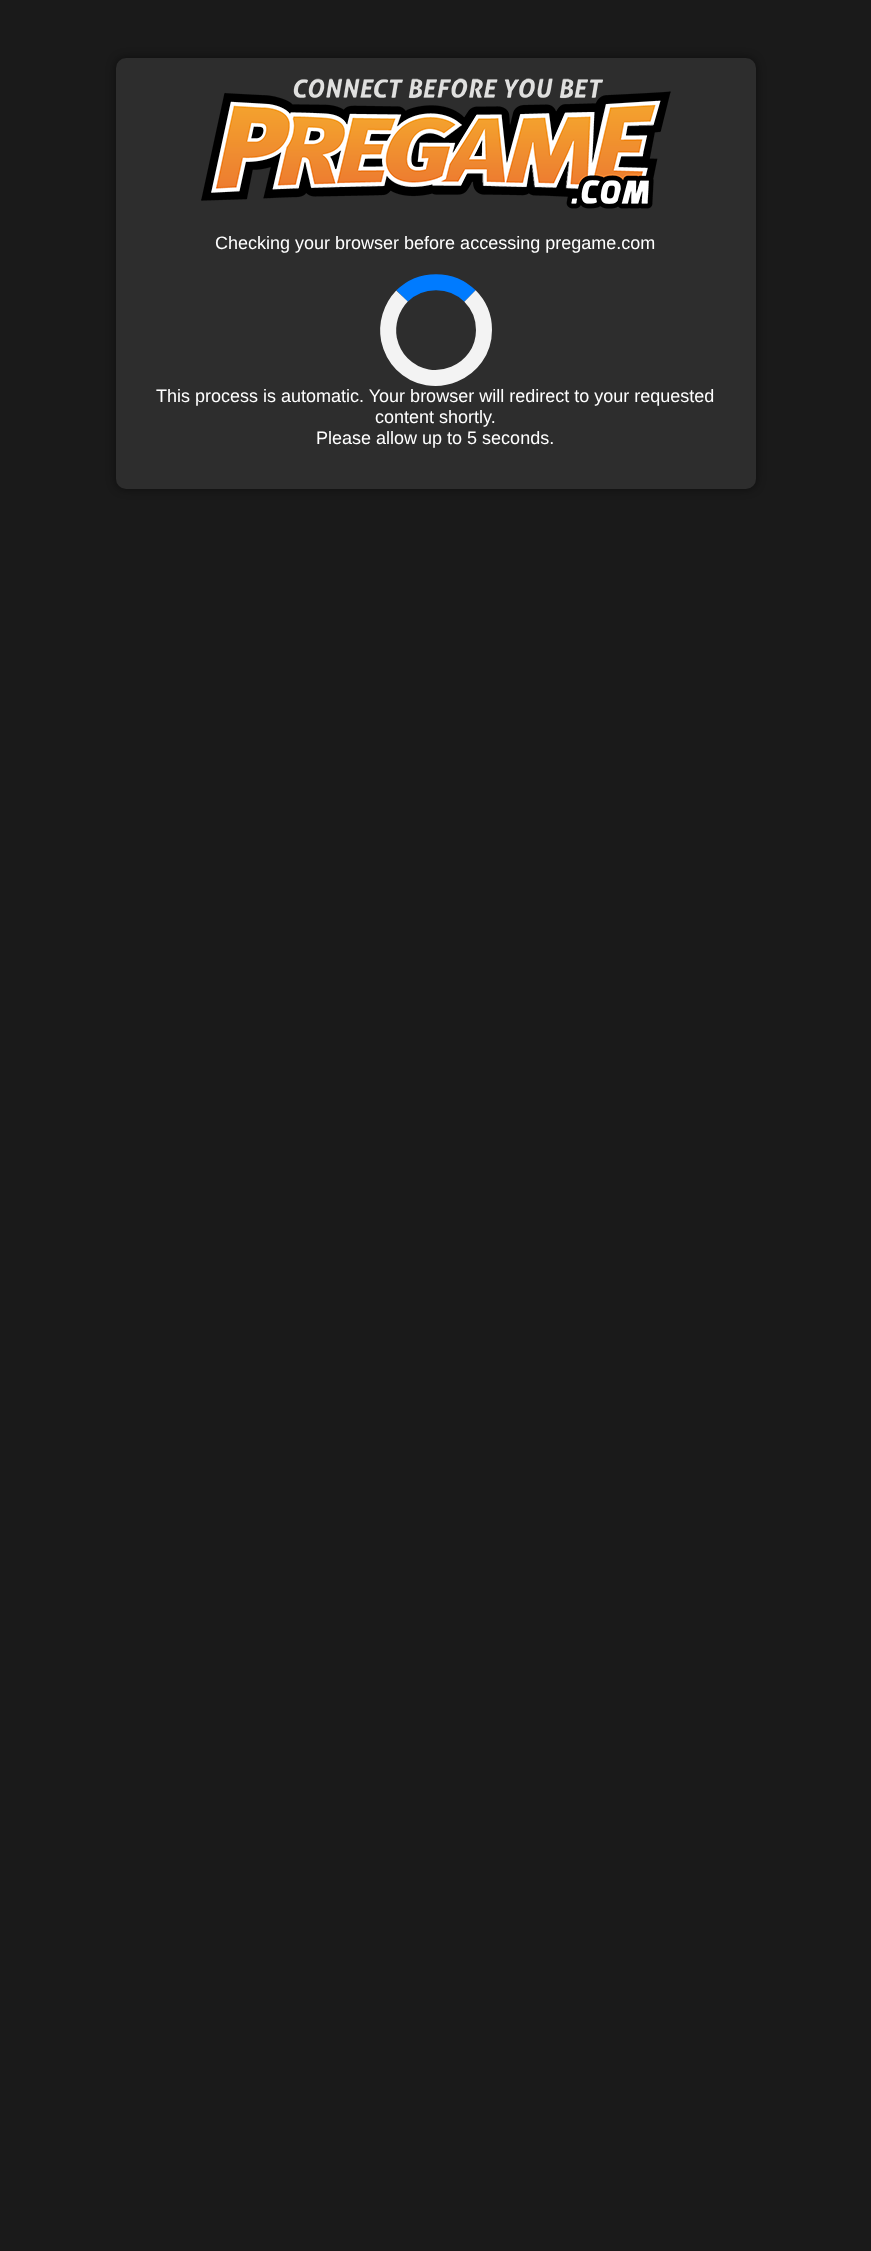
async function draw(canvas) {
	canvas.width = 871;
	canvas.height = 2251;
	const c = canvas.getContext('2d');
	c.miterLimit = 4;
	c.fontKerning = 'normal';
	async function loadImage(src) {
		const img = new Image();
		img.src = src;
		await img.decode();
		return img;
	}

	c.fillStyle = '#1a1a1a';
	c.fillRect(0, 0, 871, 2251);
	c.fillStyle = '#00000080';
	c.filter = 'blur(5px)';
	c.beginPath();
	c.roundRect(116, 58, 640, 431, 10);
	c.fill();
	c.filter = 'none';
	c.fillStyle = '#2d2d2d';
	c.beginPath();
	c.roundRect(116, 58, 640, 431, 10);
	c.fill();
	c.drawImage(await loadImage('img1.png'), 201, 78, 470, 131);
	c.font = '18px Liberation Sans';
	c.fillStyle = '#fff';
	c.fillText('Checking your browser before accessing pregame.com', 215, 249);
	c.beginPath();
	c.moveTo(402, 296);
	c.bezierCurveTo(420.5, 277.5, 451.5, 277.5, 470, 296);
	c.strokeStyle = '#007bff';
	c.lineWidth = 16;
	c.stroke();
	c.beginPath();
	c.moveTo(470, 296);
	c.bezierCurveTo(479, 305, 484, 317.5, 484, 330);
	c.bezierCurveTo(484, 372.5, 432, 394, 402, 364);
	c.bezierCurveTo(395.5, 357.5, 391, 348.5, 389, 339.5);
	c.bezierCurveTo(386, 324, 391, 307.5, 402, 296);
	c.strokeStyle = '#f3f3f3';
	c.stroke();
	for (const [text, x, y] of [
		['This process is automatic. Your browser will redirect to your requested', 156, 402],
		['content shortly.', 375, 423],
		['Please allow up to 5 seconds.', 316, 444],
	]) {
		c.fillText(text, x, y);
	}
}

draw(document.querySelector('canvas'));
